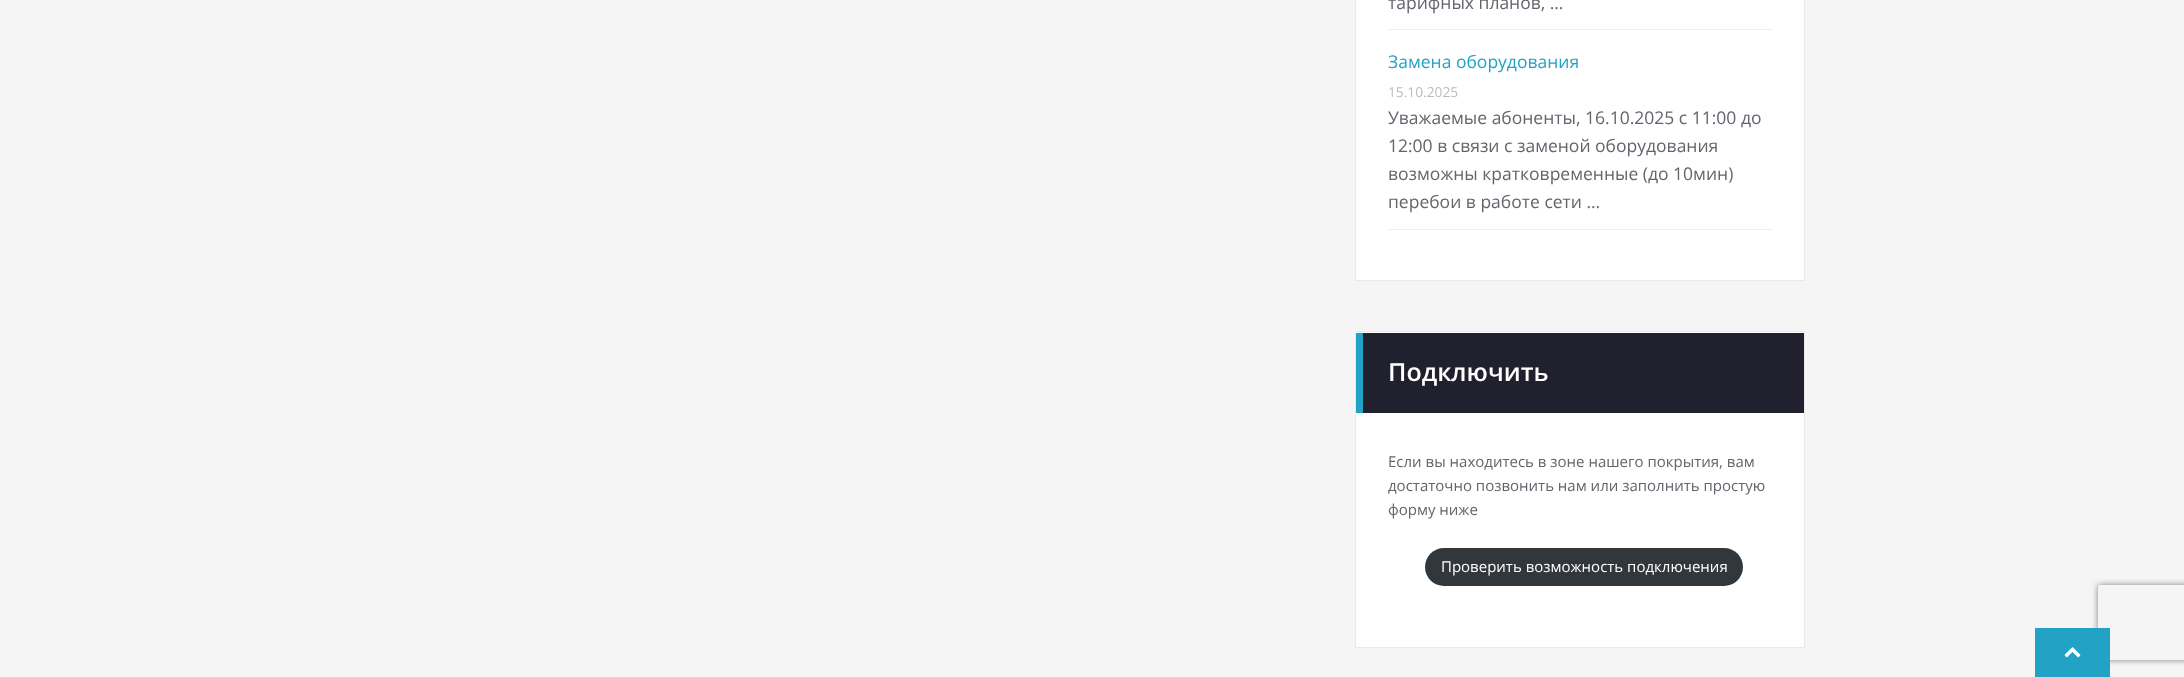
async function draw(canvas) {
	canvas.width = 2184;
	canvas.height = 677;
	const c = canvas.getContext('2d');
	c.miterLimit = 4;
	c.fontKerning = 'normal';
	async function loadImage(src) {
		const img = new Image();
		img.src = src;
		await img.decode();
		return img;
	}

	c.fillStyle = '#f5f5f5';
	c.fillRect(0, 0, 2184, 677);
	c.fillStyle = '#fff';
	c.beginPath();
	c.rect(1355.5, -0.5, 449, 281);
	c.fill();
	c.strokeStyle = '#e9e9e9';
	c.stroke();
	c.fillStyle = '#eee';
	c.fillRect(1388, 29, 385, 1);
	c.font = '17.5px Open Sans';
	c.fillStyle = '#64646d';
	c.fillText('тарифных планов, …', 1388, 9);
	c.fillStyle = '#eee';
	c.fillRect(1388, 229, 385, 1);
	c.fillStyle = '#22a2c4';
	c.fillText('Замена оборудования', 1388, 68);
	c.font = '13.75px Open Sans';
	c.fillStyle = '#bbb';
	c.fillText('15.10.2025', 1388, 97);
	c.font = '17.5px Open Sans';
	c.fillStyle = '#64646d';
	for (const [text, x, y] of [
		['Уважаемые абоненты, 16.10.2025 с 11:00 до', 1388, 124],
		['12:00 в связи с заменой оборудования', 1388, 152],
		['возможны кратковременные (до 10мин)', 1388, 180],
		['перебои в работе сети …', 1388, 208],
	]) {
		c.fillText(text, x, y);
	}
	c.fillStyle = '#fff';
	c.beginPath();
	c.rect(1355.5, 331.5, 449, 316);
	c.fill();
	c.stroke();
	c.fillStyle = '#21202e';
	c.fillRect(1363, 333, 441, 80);
	c.fillStyle = '#22a2c4';
	c.fillRect(1356, 333, 7, 80);
	c.font = '600 25px Open Sans';
	c.fillStyle = '#fff';
	c.fillText('Подключить', 1388, 381);
	c.font = '15px Open Sans';
	c.fillStyle = '#64646d';
	for (const [text, x, y] of [
		['Если вы находитесь в зоне нашего покрытия, вам', 1388, 467],
		['достаточно позвонить нам или заполнить простую', 1388, 491],
		['форму ниже', 1388, 515],
	]) {
		c.fillText(text, x, y);
	}
	c.fillStyle = '#32373c';
	c.beginPath();
	c.roundRect(1425, 548, 318, 38, 19);
	c.fill();
	c.fillStyle = '#fff';
	c.fillText('Проверить возможность подключения', 1441, 572);
	c.save();
	c.beginPath();
	c.moveTo(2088, 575);
	c.lineTo(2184, 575);
	c.lineTo(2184, 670);
	c.lineTo(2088, 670);
	c.closePath();
	c.moveTo(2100.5, 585);
	c.lineTo(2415.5, 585);
	c.bezierCurveTo(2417, 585, 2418, 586, 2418, 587.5);
	c.lineTo(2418, 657.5);
	c.bezierCurveTo(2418, 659, 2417, 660, 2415.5, 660);
	c.lineTo(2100.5, 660);
	c.bezierCurveTo(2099, 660, 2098, 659, 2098, 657.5);
	c.lineTo(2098, 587.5);
	c.bezierCurveTo(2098, 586, 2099, 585, 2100.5, 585);
	c.closePath();
	c.clip('evenodd');
	c.fillStyle = '#808080';
	c.filter = 'blur(3px)';
	c.beginPath();
	c.roundRect(2098, 585, 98, 75, 2.5);
	c.fill();
	c.filter = 'none';
	c.restore();
	c.fillStyle = '#22a2c4';
	c.fillRect(2035, 628, 75, 49);
	c.drawImage(await loadImage('img1.png'), 2064, 647, 17, 11);
}

draw(document.querySelector('canvas'));
